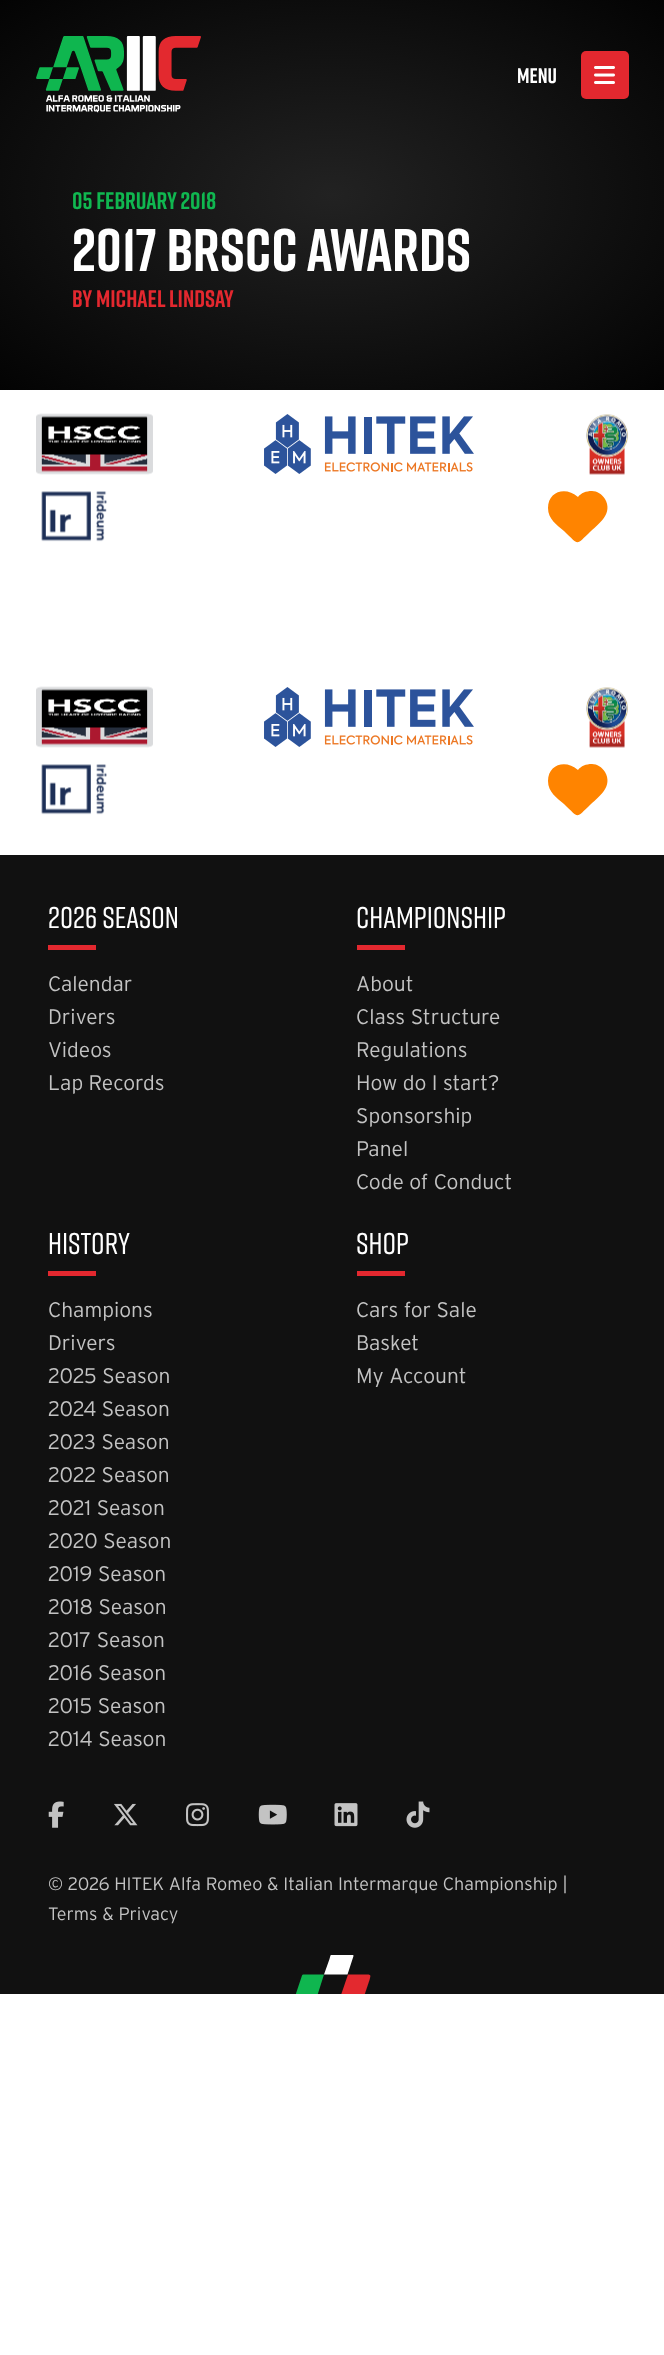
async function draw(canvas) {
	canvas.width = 664;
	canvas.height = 2355;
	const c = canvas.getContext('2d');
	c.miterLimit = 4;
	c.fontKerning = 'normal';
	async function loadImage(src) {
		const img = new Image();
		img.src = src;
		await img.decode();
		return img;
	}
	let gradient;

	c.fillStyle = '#fff';
	c.fillRect(0, 0, 664, 2355);
	gradient = c.createRadialGradient(332, 332.07, 0, 332, 332.07, 470);
	gradient.addColorStop(0, '#222');
	gradient.addColorStop(1, '#030303');
	c.fillStyle = gradient;
	c.beginPath();
	c.rect(0, 0, 664, 390);
	c.save();
	c.clip();
	c.scale(1, 276 / 470);
	c.fillRect(0, 0, 664, 4011);
	c.restore();
	c.drawImage(await loadImage('img1.png'), 36, 36, 165, 77);
	c.font = 'bold 21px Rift';
	c.fillStyle = '#fff';
	c.fillText('MENU', 517, 83);
	c.fillStyle = '#e3282f';
	c.beginPath();
	c.roundRect(581, 51, 48, 48, 5);
	c.fill();
	c.drawImage(await loadImage('img2.png'), 594, 66, 21, 18);
	c.font = 'bold 24px Rift';
	c.fillStyle = '#10b750';
	c.fillText('05 FEBRUARY 2018', 72, 209);
	c.font = 'bold 60px Rift';
	c.fillStyle = '#fff';
	c.fillText('2017 BRSCC AWARDS', 72, 271);
	c.font = 'bold 24px Rift';
	c.fillStyle = '#e3282f';
	c.fillText('BY MICHAEL LINDSAY', 72, 307);
	c.drawImage(await loadImage('img3.png'), 36, 413, 117, 62);
	c.drawImage(await loadImage('img4.png'), 264, 414, 210, 60);
	c.drawImage(await loadImage('img5.png'), 586, 414, 42, 61);
	c.drawImage(await loadImage('img6.png'), 41, 491, 66, 51);
	c.fillStyle = '#ff8400';
	c.beginPath();
	c.moveTo(548, 508);
	c.bezierCurveTo(548, 491, 566, 486, 578, 497);
	c.bezierCurveTo(581, 493, 586, 491, 592, 491);
	c.bezierCurveTo(597, 491, 602, 494, 605, 499);
	c.bezierCurveTo(613, 513, 600, 523, 591, 531);
	c.bezierCurveTo(575, 546, 580, 546, 564, 531);
	c.bezierCurveTo(557, 525, 548, 519, 548, 508);
	c.closePath();
	c.fill();
	c.drawImage(await loadImage('img3.png'), 36, 686, 117, 62);
	c.drawImage(await loadImage('img4.png'), 264, 687, 210, 60);
	c.drawImage(await loadImage('img7.png'), 586, 687, 42, 61);
	c.drawImage(await loadImage('img6.png'), 41, 764, 66, 51);
	c.beginPath();
	c.moveTo(548, 781);
	c.bezierCurveTo(548, 764, 566, 759, 578, 770);
	c.bezierCurveTo(581, 766, 586, 764, 592, 764);
	c.bezierCurveTo(597, 764, 602, 767, 605, 772);
	c.bezierCurveTo(613, 786, 600, 796, 591, 804);
	c.bezierCurveTo(575, 819, 580, 819, 564, 804);
	c.bezierCurveTo(557, 798, 548, 792, 548, 781);
	c.closePath();
	c.fill();
	c.fillStyle = '#111';
	c.fillRect(0, 855, 664, 1139);
	c.font = '500 30px Rift';
	c.fillStyle = '#fff';
	c.fillText('2026 SEASON', 48, 928);
	c.fillStyle = '#e3282f';
	c.fillRect(48, 945, 48, 5);
	c.font = '300 21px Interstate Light';
	c.fillStyle = '#c3c3c3';
	for (const [text, x, y] of [
		['Calendar', 48, 991],
		['Drivers', 48, 1024],
		['Videos', 48, 1057],
		['Lap Records', 48, 1090],
	]) {
		c.fillText(text, x, y);
	}
	c.font = '500 30px Rift';
	c.fillStyle = '#fff';
	c.fillText('CHAMPIONSHIP', 356, 928);
	c.fillStyle = '#e3282f';
	c.fillRect(357, 945, 48, 5);
	c.font = '300 21px Interstate Light';
	c.fillStyle = '#c3c3c3';
	for (const [text, x, y] of [
		['About', 356, 991],
		['Class Structure', 356, 1024],
		['Regulations', 356, 1057],
		['How do I start?', 356, 1090],
		['Sponsorship', 356, 1123],
		['Panel', 356, 1156],
		['Code of Conduct', 356, 1189],
	]) {
		c.fillText(text, x, y);
	}
	c.font = '500 30px Rift';
	c.fillStyle = '#fff';
	c.fillText('HISTORY', 48, 1254);
	c.fillStyle = '#e3282f';
	c.fillRect(48, 1271, 48, 5);
	c.font = '300 21px Interstate Light';
	c.fillStyle = '#c3c3c3';
	for (const [text, x, y] of [
		['Champions', 48, 1317],
		['Drivers', 48, 1350],
		['2025 Season', 48, 1383],
		['2024 Season', 48, 1416],
		['2023 Season', 48, 1449],
		['2022 Season', 48, 1482],
		['2021 Season', 48, 1515],
		['2020 Season', 48, 1548],
		['2019 Season', 48, 1581],
		['2018 Season', 48, 1614],
		['2017 Season', 48, 1647],
		['2016 Season', 48, 1680],
		['2015 Season', 48, 1713],
		['2014 Season', 48, 1746],
	]) {
		c.fillText(text, x, y);
	}
	c.font = '500 30px Rift';
	c.fillStyle = '#fff';
	c.fillText('SHOP', 356, 1254);
	c.fillStyle = '#e3282f';
	c.fillRect(357, 1271, 48, 5);
	c.font = '300 21px Interstate Light';
	c.fillStyle = '#c3c3c3';
	for (const [text, x, y] of [
		['Cars for Sale', 356, 1317],
		['Basket', 356, 1350],
		['My Account', 356, 1383],
	]) {
		c.fillText(text, x, y);
	}
	c.drawImage(await loadImage('img8.png'), 48, 1801, 16, 27);
	c.drawImage(await loadImage('img9.png'), 114, 1803, 24, 23);
	c.drawImage(await loadImage('img10.png'), 186, 1803, 23, 24);
	c.drawImage(await loadImage('img11.png'), 258, 1804, 29, 21);
	c.drawImage(await loadImage('img12.png'), 334, 1803, 24, 24);
	c.drawImage(await loadImage('img13.png'), 406, 1801, 24, 27);
	c.font = '300 18px Interstate Light';
	c.fillText('© 2026 HITEK Alfa Romeo & Italian Intermarque Championship |', 48, 1890);
	c.fillText('Terms & Privacy', 48, 1920);
	c.save();
	c.beginPath();
	c.rect(296, 1955, 75, 39);
	c.clip();
	c.fillStyle = '#0fb64f';
	c.beginPath();
	c.moveTo(317.5, 1995);
	c.lineTo(324, 1974.5);
	c.lineTo(303.5, 1974.5);
	c.bezierCurveTo(303, 1974.5, 302, 1975, 302, 1975.5);
	c.lineTo(295.5, 1995);
	c.closePath();
	c.fill();
	c.fillStyle = '#e3292f';
	c.beginPath();
	c.moveTo(364.5, 1995);
	c.lineTo(369.5, 1980);
	c.bezierCurveTo(371, 1974.5, 371, 1974.5, 365.5, 1974.5);
	c.lineTo(348, 1974.5);
	c.lineTo(341, 1995);
	c.closePath();
	c.fill();
	c.fillStyle = '#fff';
	c.beginPath();
	c.moveTo(347.5, 1974.5);
	c.lineTo(353.5, 1956);
	c.bezierCurveTo(353.5, 1953.5, 349.5, 1954.5, 348.5, 1954.5);
	c.lineTo(335.5, 1954.5);
	c.bezierCurveTo(330, 1954.5, 331, 1954, 329.5, 1959);
	c.lineTo(324, 1974.5);
	c.closePath();
	c.fill();
	c.restore();
}

draw(document.querySelector('canvas'));
